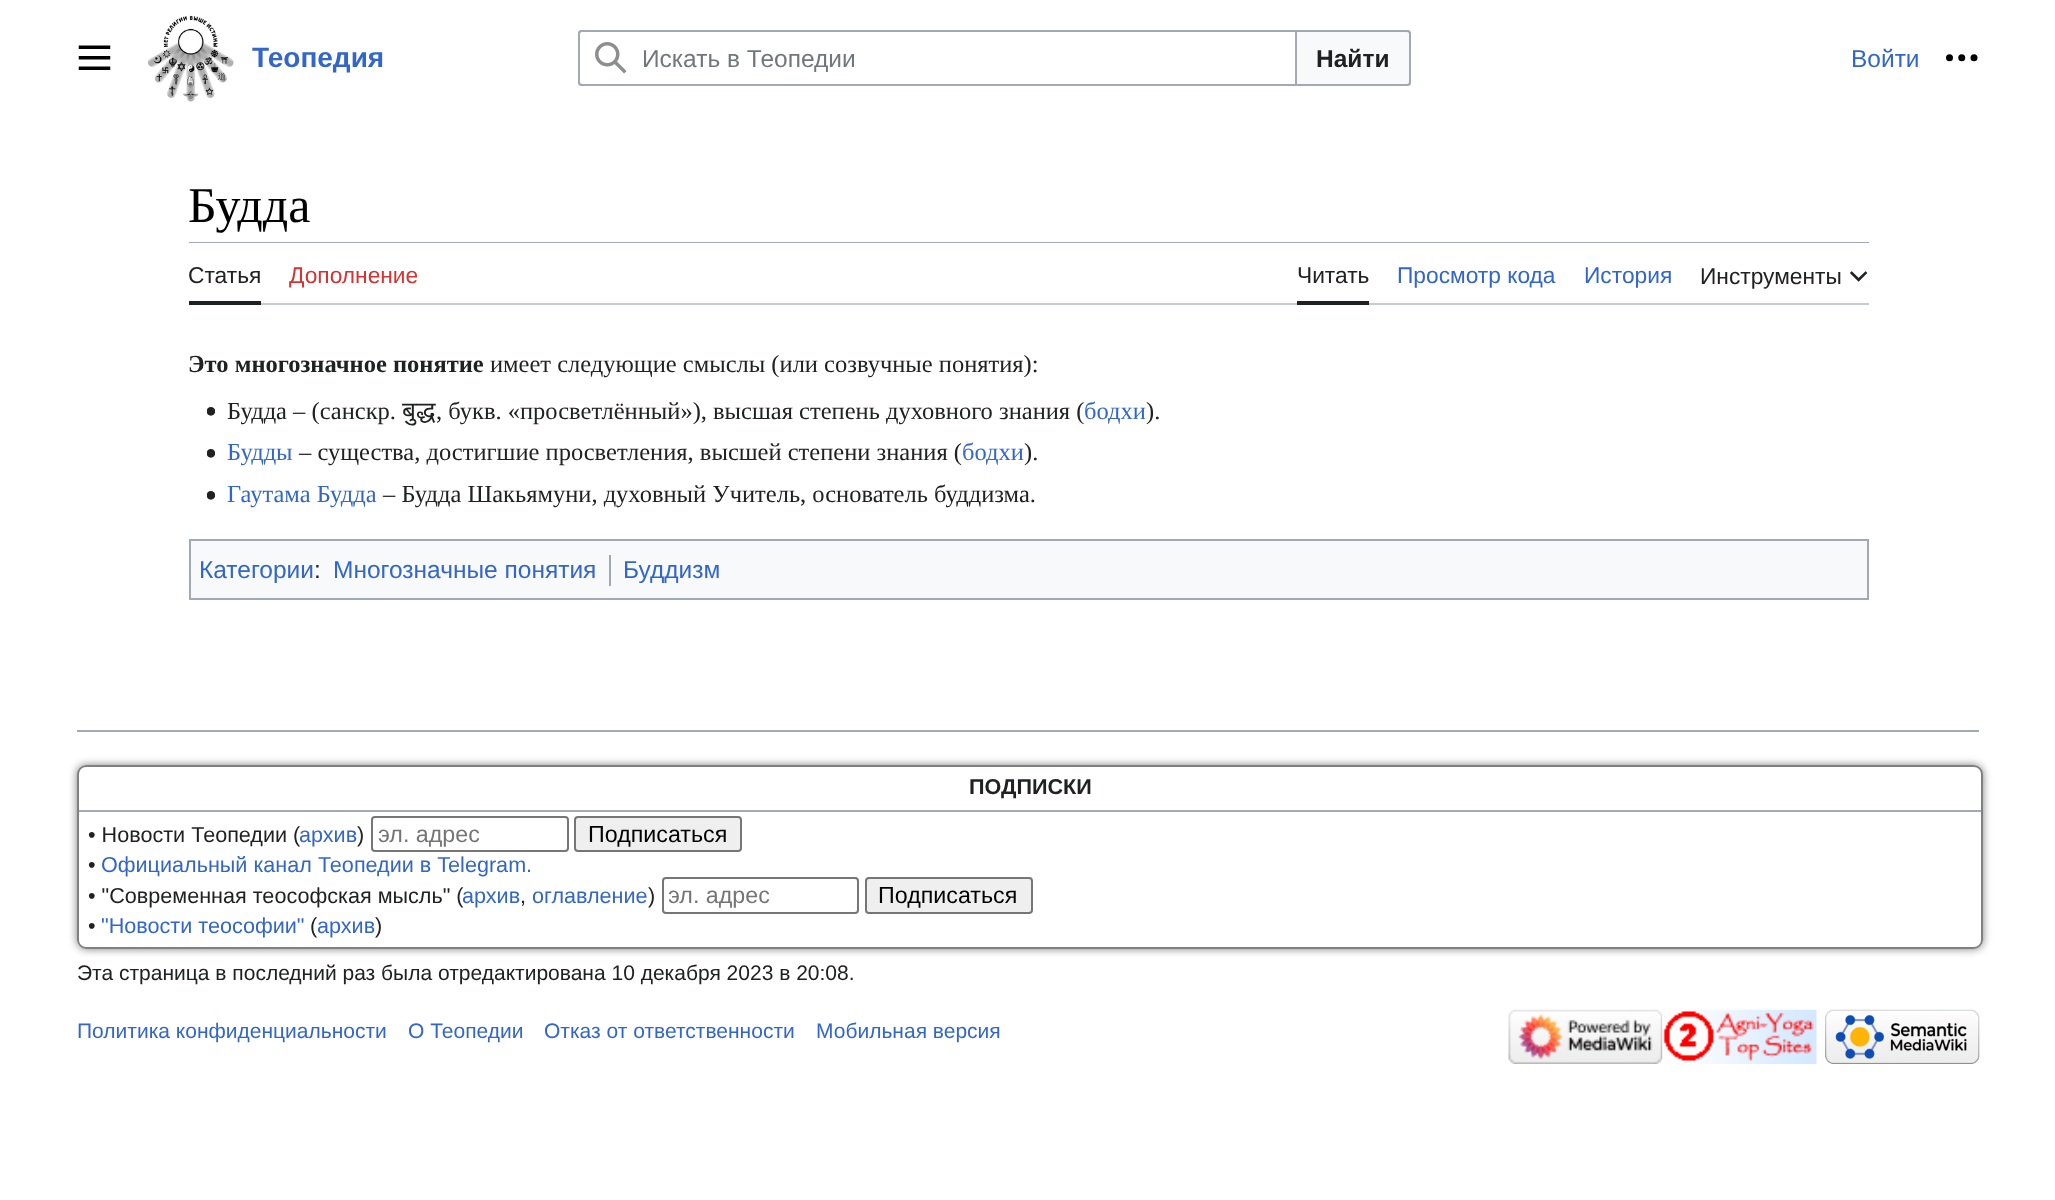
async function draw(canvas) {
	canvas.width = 2055;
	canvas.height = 1200;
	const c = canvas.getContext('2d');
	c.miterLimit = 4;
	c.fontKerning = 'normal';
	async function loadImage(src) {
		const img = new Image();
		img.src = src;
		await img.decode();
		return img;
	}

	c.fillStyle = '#fff';
	c.fillRect(0, 0, 2055, 1200);
	c.drawImage(await loadImage('img1.png'), 78, 45, 33, 25);
	c.drawImage(await loadImage('img2.png'), 147, 15, 87, 87);
	c.font = 'bold 28px Liberation Sans';
	c.fillStyle = '#36c';
	c.fillText('Теопедия', 252, 67);
	c.beginPath();
	c.roundRect(579, 31, 831, 54, 3);
	c.strokeStyle = '#a2a9b1';
	c.lineWidth = 2;
	c.stroke();
	c.fillStyle = '#f8f9fa';
	c.beginPath();
	c.roundRect(1296, 31, 114, 54, [0, 3, 3, 0]);
	c.fill();
	c.stroke();
	c.fillStyle = '#fff';
	c.beginPath();
	c.roundRect(579, 31, 717, 54, [3, 0, 0, 3]);
	c.fill();
	c.stroke();
	c.drawImage(await loadImage('img3.png'), 595, 42, 32, 32);
	c.font = '24.5px Liberation Sans';
	c.fillStyle = '#72777d';
	c.fillText('Искать в Теопедии', 642, 67);
	c.font = 'bold 24.5px Liberation Sans';
	c.fillStyle = '#202122';
	c.fillText('Найти', 1316, 67);
	c.font = '24.5px Liberation Sans';
	c.fillStyle = '#36c';
	c.fillText('Войти', 1851, 67);
	c.drawImage(await loadImage('img4.png'), 1946, 54, 32, 8);
	c.fillStyle = '#a2a9b1';
	c.fillRect(189, 242, 1680, 1);
	c.font = '50px Liberation Serif';
	c.fillStyle = '#000';
	c.fillText('Будда', 188, 222);
	c.fillStyle = '#c8ccd1';
	c.fillRect(261, 303, 1608, 2);
	c.fillStyle = '#202122';
	c.fillRect(189, 301, 72, 4);
	c.font = '22.75px Liberation Sans';
	c.fillText('Статья', 188, 283);
	c.fillStyle = '#d73333';
	c.fillText('Дополнение', 289, 283);
	c.fillStyle = '#202122';
	c.fillRect(1297, 301, 72, 4);
	c.fillText('Читать', 1297, 283);
	c.fillStyle = '#36c';
	c.fillText('Просмотр кода', 1397, 283);
	c.fillText('История', 1584, 283);
	c.fillStyle = '#202122';
	c.fillText('Инструменты', 1700, 284);
	c.drawImage(await loadImage('img5.png'), 1850, 271, 18, 11);
	c.font = 'bold 24.5px Liberation Serif';
	c.fillText('Это многозначное понятие', 188, 372);
	c.font = '24.5px Liberation Serif';
	c.fillText('имеет следующие смыслы (или созвучные понятия):', 490, 372);
	c.drawImage(await loadImage('img6.png'), 207, 407, 8, 9);
	c.fillText('Будда – (санскр.', 227, 419);
	c.font = '24.5px Noto Sans';
	c.fillText('बुद्ध', 402, 419);
	c.font = '24.5px Liberation Serif';
	c.fillText(', букв. «просветлённый»), высшая степень духовного знания (', 436, 419);
	c.fillStyle = '#36c';
	c.fillText('бодхи', 1084, 419);
	c.fillStyle = '#202122';
	c.fillText(').', 1146, 419);
	c.drawImage(await loadImage('img6.png'), 207, 449, 8, 9);
	c.fillStyle = '#36c';
	c.fillText('Будды', 227, 460);
	c.fillStyle = '#202122';
	c.fillText('– существа, достигшие просветления, высшей степени знания (', 299, 460);
	c.fillStyle = '#36c';
	c.fillText('бодхи', 962, 460);
	c.fillStyle = '#202122';
	c.fillText(').', 1024, 460);
	c.drawImage(await loadImage('img6.png'), 207, 491, 8, 9);
	c.fillStyle = '#36c';
	c.fillText('Гаутама Будда', 227, 502);
	c.fillStyle = '#202122';
	c.fillText('– Будда Шакьямуни, духовный Учитель, основатель буддизма.', 383, 502);
	c.fillStyle = '#f8f9fa';
	c.beginPath();
	c.rect(190, 540, 1678, 59);
	c.fill();
	c.stroke();
	c.font = '24.5px Liberation Sans';
	c.fillStyle = '#36c';
	c.fillText('Категории', 199, 578);
	c.fillStyle = '#202122';
	c.fillText(':', 314, 578);
	c.fillStyle = '#36c';
	c.fillText('Многозначные понятия', 333, 578);
	c.fillStyle = '#a2a9b1';
	c.fillRect(609, 555, 2, 31);
	c.fillStyle = '#36c';
	c.fillText('Буддизм', 623, 578);
	c.fillStyle = '#a2a9b1';
	c.fillRect(77, 730, 1902, 2);
	c.save();
	c.beginPath();
	c.moveTo(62, 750);
	c.lineTo(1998, 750);
	c.lineTo(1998, 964);
	c.lineTo(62, 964);
	c.closePath();
	c.moveTo(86, 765);
	c.lineTo(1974, 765);
	c.bezierCurveTo(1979, 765, 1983, 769, 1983, 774);
	c.lineTo(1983, 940);
	c.bezierCurveTo(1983, 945, 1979, 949, 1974, 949);
	c.lineTo(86, 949);
	c.bezierCurveTo(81, 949, 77, 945, 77, 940);
	c.lineTo(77, 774);
	c.bezierCurveTo(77, 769, 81, 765, 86, 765);
	c.closePath();
	c.clip('evenodd');
	c.fillStyle = '#00000080';
	c.filter = 'blur(4.5px)';
	c.beginPath();
	c.roundRect(77, 765, 1906, 184, 9);
	c.fill();
	c.filter = 'none';
	c.restore();
	c.beginPath();
	c.roundRect(78, 766, 1904, 182, 8);
	c.strokeStyle = '#808080';
	c.stroke();
	c.font = 'bold 21.6px Liberation Sans';
	c.fillStyle = '#202122';
	c.fillText('ПОДПИСКИ', 969, 794);
	c.fillStyle = '#a2a9b1';
	c.fillRect(79, 810, 1902, 2);
	c.font = '21.6px Liberation Sans';
	c.fillStyle = '#202122';
	c.fillText('• Новости Теопедии (', 88, 842);
	c.fillStyle = '#36c';
	c.fillText('архив', 299, 842);
	c.fillStyle = '#202122';
	c.fillText(')', 357, 842);
	c.beginPath();
	c.roundRect(372, 817, 196, 34, 3);
	c.strokeStyle = '#767676';
	c.stroke();
	c.font = '23.25px Liberation Sans';
	c.fillStyle = '#757575';
	c.fillText('эл. адрес', 378, 842);
	c.fillStyle = '#efefef';
	c.beginPath();
	c.roundRect(575, 817, 166, 34, 3);
	c.fill();
	c.stroke();
	c.fillStyle = '#000';
	c.fillText('Подписаться', 588, 842);
	c.font = '21.6px Liberation Sans';
	c.fillStyle = '#202122';
	c.fillText('•', 88, 872);
	c.fillStyle = '#36c';
	c.fillText('Официальный канал Теопедии в Telegram.', 101, 872);
	c.fillStyle = '#202122';
	c.fillText('• "Современная теософская мысль" (', 88, 903);
	c.fillStyle = '#36c';
	c.fillText('архив', 462, 903);
	c.fillStyle = '#202122';
	c.fillText(',', 520, 903);
	c.fillStyle = '#36c';
	c.fillText('оглавление', 532, 903);
	c.fillStyle = '#202122';
	c.fillText(')', 648, 903);
	c.beginPath();
	c.roundRect(663, 878, 195, 35, 3);
	c.stroke();
	c.save();
	c.beginPath();
	c.rect(669, 882, 183, 26);
	c.clip();
	c.font = '23.25px Liberation Sans';
	c.fillStyle = '#757575';
	c.fillText('эл. адрес', 668, 903);
	c.restore();
	c.fillStyle = '#efefef';
	c.beginPath();
	c.roundRect(866, 878, 166, 35, 3);
	c.fill();
	c.stroke();
	c.font = '23.25px Liberation Sans';
	c.fillStyle = '#000';
	c.fillText('Подписаться', 878, 903);
	c.font = '21.6px Liberation Sans';
	c.fillStyle = '#202122';
	c.fillText('•', 88, 933);
	c.fillStyle = '#36c';
	c.fillText('"Новости теософии"', 101, 933);
	c.fillStyle = '#202122';
	c.fillText('(', 310, 933);
	c.fillStyle = '#36c';
	c.fillText('архив', 317, 933);
	c.fillStyle = '#202122';
	c.fillText(')', 375, 933);
	c.font = '21px Liberation Sans';
	c.fillText('Эта страница в последний раз была отредактирована 10 декабря 2023 в 20:08.', 77, 980);
	c.fillStyle = '#36c';
	for (const [text, x, y] of [
		['Политика конфиденциальности', 77, 1038],
		['О Теопедии', 408, 1038],
		['Отказ от ответственности', 544, 1038],
		['Мобильная версия', 816, 1038],
	]) {
		c.fillText(text, x, y);
	}
	c.drawImage(await loadImage('img7.png'), 1508, 1009, 155, 55);
	c.drawImage(await loadImage('img8.png'), 1662, 1009, 155, 55);
	c.drawImage(await loadImage('img9.png'), 1825, 1009, 155, 55);
}

draw(document.querySelector('canvas'));
